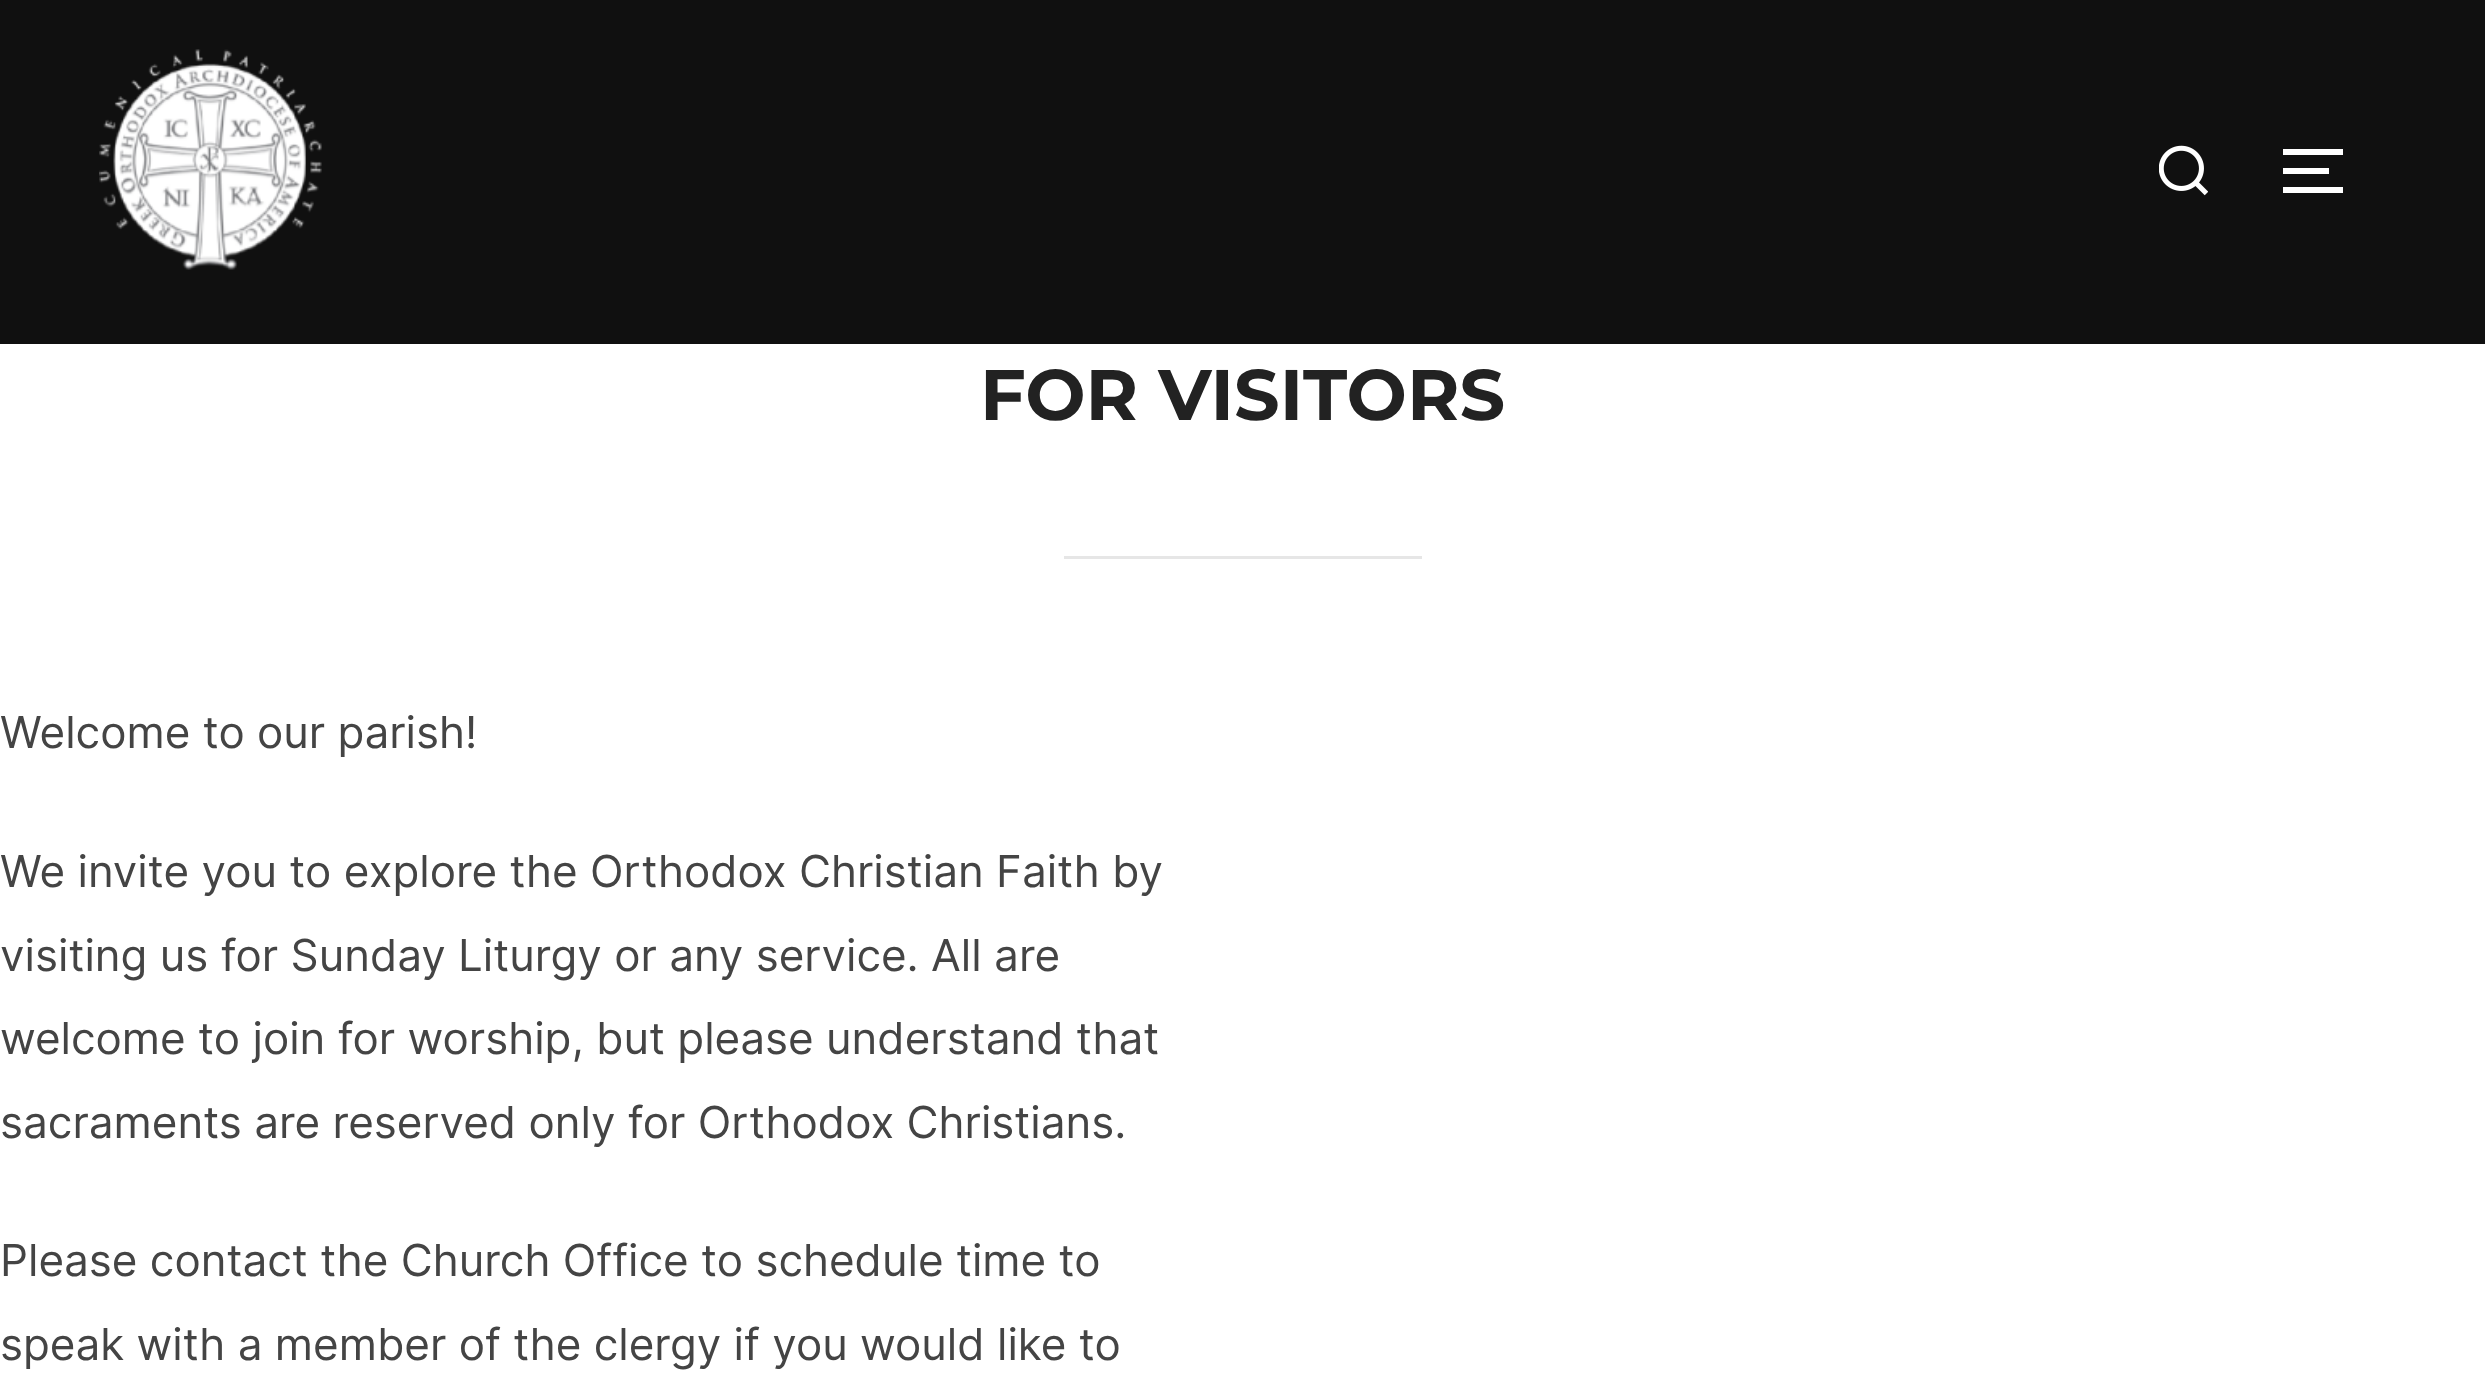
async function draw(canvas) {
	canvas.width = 2485;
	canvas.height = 1384;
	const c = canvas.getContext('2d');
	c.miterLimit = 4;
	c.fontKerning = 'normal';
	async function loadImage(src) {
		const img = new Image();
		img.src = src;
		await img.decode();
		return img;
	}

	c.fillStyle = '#fff';
	c.fillRect(0, 0, 2485, 1384);
	c.fillStyle = '#101010';
	c.fillRect(0, 0, 2485, 344);
	c.drawImage(await loadImage('img1.png'), 99, 49, 223, 221);
	c.drawImage(await loadImage('img2.png'), 2159, 145, 49, 51);
	for (const [x, y, w, h, color] of [
		[2283, 149, 60, 6, '#fff'],
		[2283, 168, 46, 6, '#fff'],
		[2283, 187, 60, 6, '#fff'],
	]) {
		c.fillStyle = color;
		c.fillRect(x, y, w, h);
	}
	c.font = 'bold 71.5px Montserrat';
	c.fillStyle = '#222';
	c.fillText('FOR VISITORS', 980, 420);
	c.fillStyle = '#e6e6e6';
	c.fillRect(1064, 556, 358, 3);
	c.font = '44px Inter';
	c.fillStyle = '#444';
	for (const [text, x, y] of [
		['Welcome to our parish!', 0, 748],
		['We invite you to explore the Orthodox Christian Faith by', 0, 887],
		['visiting us for Sunday Liturgy or any service. All are', 0, 971],
		['welcome to join for worship, but please understand that', 0, 1054],
		['sacraments are reserved only for Orthodox Christians.', 0, 1138],
		['Please contact the Church Office to schedule time to', 0, 1276],
		['speak with a member of the clergy if you would like to', 0, 1360],
	]) {
		c.fillText(text, x, y);
	}
}

draw(document.querySelector('canvas'));
